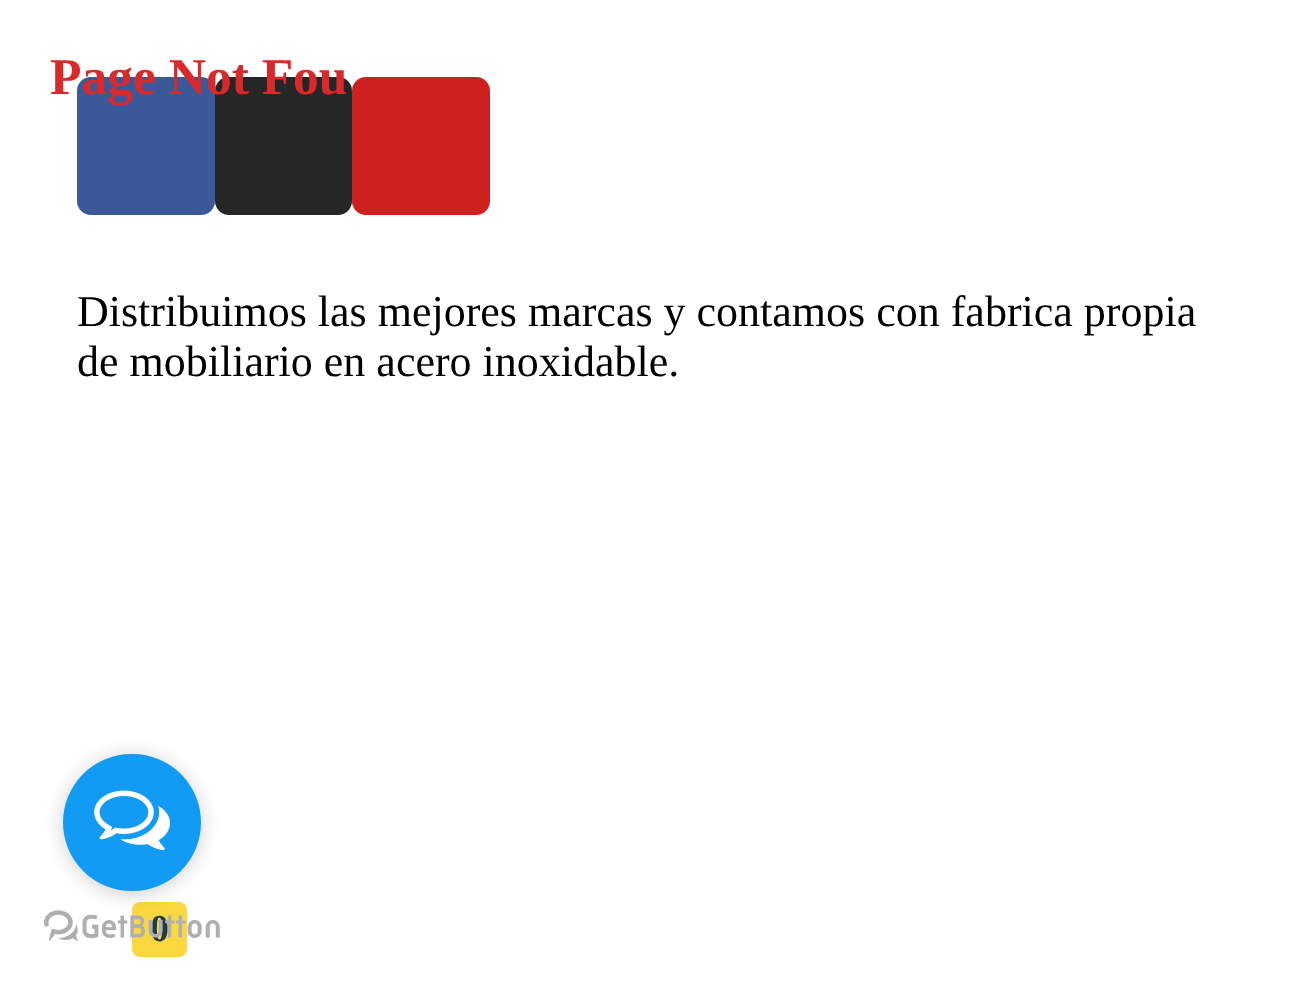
async function draw(canvas) {
	canvas.width = 1306;
	canvas.height = 982;
	const c = canvas.getContext('2d');
	c.miterLimit = 4;
	c.fontKerning = 'normal';
	async function loadImage(src) {
		const img = new Image();
		img.src = src;
		await img.decode();
		return img;
	}

	c.fillStyle = '#fff';
	c.fillRect(0, 0, 1306, 982);
	c.fillStyle = '#3b5998';
	c.beginPath();
	c.roundRect(77, 77, 138, 138, 14);
	c.fill();
	c.fillStyle = '#262626';
	c.beginPath();
	c.roundRect(215, 77, 137, 138, 14);
	c.fill();
	c.font = 'bold 51.5px Liberation Serif';
	c.fillStyle = '#da292a';
	c.fillText('Page Not Fou', 50, 94);
	c.font = '44px Liberation Serif';
	c.fillStyle = '#000';
	c.fillText('Distribuimos las mejores marcas y contamos con fabrica propia', 77, 326);
	c.fillText('de mobiliario en acero inoxidable.', 77, 376);
	c.fillStyle = '#fbd83f';
	c.beginPath();
	c.roundRect(132, 902, 55, 55, 8);
	c.fill();
	c.font = 'bold 38px Liberation Serif';
	c.fillStyle = '#203b48';
	c.fillText('0', 150, 941);
	c.drawImage(await loadImage('img2.png'), 44, 910, 176, 31);
	c.fillStyle = '#88888866';
	c.filter = 'blur(9.5px)';
	c.beginPath();
	c.roundRect(63, 756, 138, 138, 69);
	c.fill();
	c.filter = 'none';
	c.fillStyle = '#129bf4';
	c.beginPath();
	c.roundRect(63, 754, 138, 137, 68.5);
	c.fill();
	c.drawImage(await loadImage('img1.png'), 94, 790, 76, 61);
	c.fillStyle = '#cd201f';
	c.beginPath();
	c.roundRect(352, 77, 138, 138, 14);
	c.fill();
}

draw(document.querySelector('canvas'));
